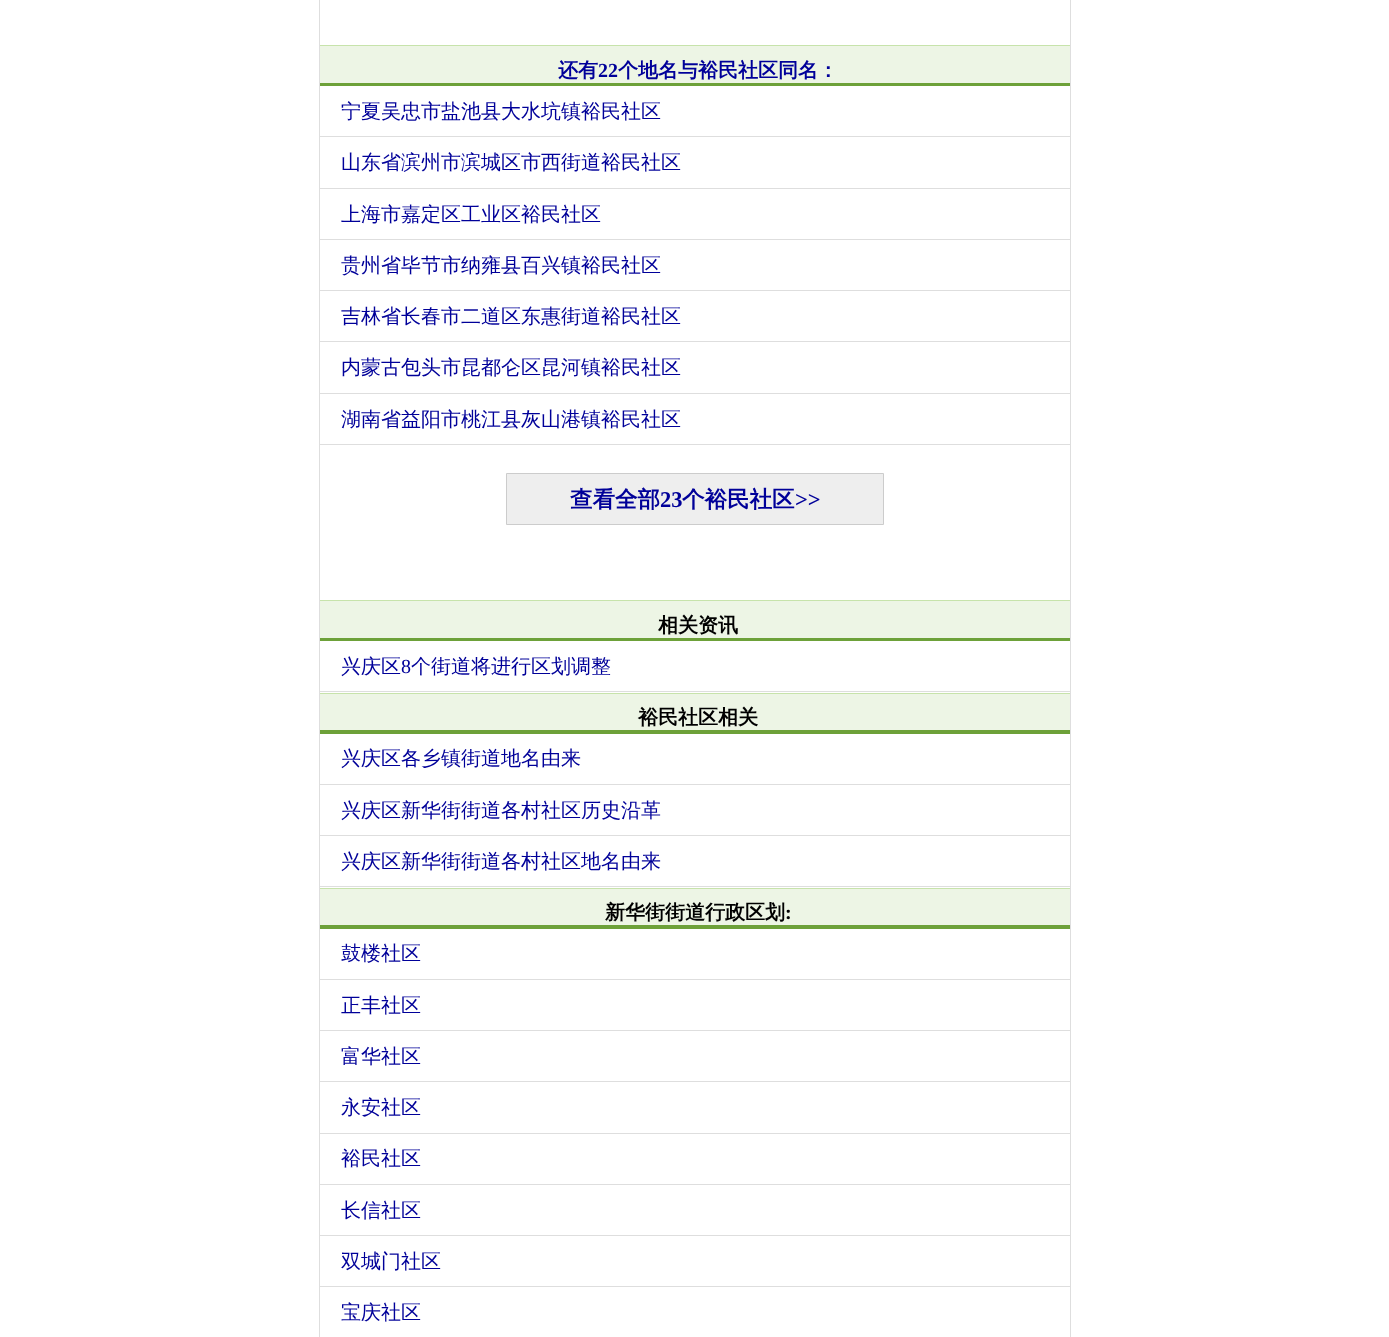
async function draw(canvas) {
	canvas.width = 1389;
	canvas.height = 1337;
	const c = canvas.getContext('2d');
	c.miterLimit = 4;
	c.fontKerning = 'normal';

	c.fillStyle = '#fff';
	c.fillRect(0, 0, 1389, 1337);
	c.strokeStyle = '#dedede';
	c.strokeRect(319.5, -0.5, 751, 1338);
	for (const [x, y, w, h, color] of [
		[320, 46, 750, 37, '#edf5e5'],
		[320, 45, 750, 1, '#c7e3ab'],
		[320, 83, 750, 3, '#6da139'],
	]) {
		c.fillStyle = color;
		c.fillRect(x, y, w, h);
	}
	c.font = 'bold 20px WenQuanYi Zen Hei';
	c.fillStyle = '#009';
	c.fillText('还有', 558, 77);
	c.font = 'bold 20px Liberation Serif';
	c.fillText('22', 598, 77);
	c.font = 'bold 20px WenQuanYi Zen Hei';
	c.fillText('个地名与裕民社区同名：', 618, 77);
	c.fillStyle = '#dedede';
	c.fillRect(320, 136, 750, 1);
	c.font = '500 20px WenQuanYi Zen Hei';
	c.fillStyle = '#009';
	c.fillText('宁夏吴忠市盐池县大水坑镇裕民社区', 341, 118);
	c.fillStyle = '#dedede';
	c.fillRect(320, 188, 750, 1);
	c.fillStyle = '#009';
	c.fillText('山东省滨州市滨城区市西街道裕民社区', 341, 169);
	c.fillStyle = '#dedede';
	c.fillRect(320, 239, 750, 1);
	c.fillStyle = '#009';
	c.fillText('上海市嘉定区工业区裕民社区', 341, 221);
	c.fillStyle = '#dedede';
	c.fillRect(320, 290, 750, 1);
	c.fillStyle = '#009';
	c.fillText('贵州省毕节市纳雍县百兴镇裕民社区', 341, 272);
	c.fillStyle = '#dedede';
	c.fillRect(320, 341, 750, 1);
	c.fillStyle = '#009';
	c.fillText('吉林省长春市二道区东惠街道裕民社区', 341, 323);
	c.fillStyle = '#dedede';
	c.fillRect(320, 393, 750, 1);
	c.fillStyle = '#009';
	c.fillText('内蒙古包头市昆都仑区昆河镇裕民社区', 341, 374);
	c.fillStyle = '#dedede';
	c.fillRect(320, 444, 750, 1);
	c.fillStyle = '#009';
	c.fillText('湖南省益阳市桃江县灰山港镇裕民社区', 341, 426);
	c.fillStyle = '#eee';
	c.beginPath();
	c.rect(506.5, 473.5, 377, 51);
	c.fill();
	c.strokeStyle = '#ccc';
	c.stroke();
	c.font = 'bold 22.5px WenQuanYi Zen Hei';
	c.fillStyle = '#009';
	c.fillText('查看全部', 570, 507);
	c.font = 'bold 22.5px Liberation Serif';
	c.fillText('23', 660, 507);
	c.font = 'bold 22.5px WenQuanYi Zen Hei';
	c.fillText('个裕民社区', 682, 507);
	c.font = 'bold 22.5px Liberation Serif';
	c.fillText('>>', 795, 507);
	for (const [x, y, w, h, color] of [
		[320, 601, 750, 37, '#edf5e5'],
		[320, 600, 750, 1, '#c7e3ab'],
		[320, 638, 750, 3, '#6da139'],
	]) {
		c.fillStyle = color;
		c.fillRect(x, y, w, h);
	}
	c.font = 'bold 20px WenQuanYi Zen Hei';
	c.fillStyle = '#000';
	c.fillText('相关资讯', 658, 632);
	c.fillStyle = '#dedede';
	c.fillRect(320, 691, 750, 1);
	c.font = '500 20px WenQuanYi Zen Hei';
	c.fillStyle = '#009';
	c.fillText('兴庆区', 341, 673);
	c.font = '20px Liberation Serif';
	c.fillText('8', 401, 673);
	c.font = '500 20px WenQuanYi Zen Hei';
	c.fillText('个街道将进行区划调整', 411, 673);
	for (const [x, y, w, h, color] of [
		[320, 694, 750, 36, '#edf5e5'],
		[320, 693, 750, 1, '#c7e3ab'],
		[320, 730, 750, 4, '#6da139'],
	]) {
		c.fillStyle = color;
		c.fillRect(x, y, w, h);
	}
	c.font = 'bold 20px WenQuanYi Zen Hei';
	c.fillStyle = '#000';
	c.fillText('裕民社区相关', 638, 724);
	c.fillStyle = '#dedede';
	c.fillRect(320, 784, 750, 1);
	c.font = '500 20px WenQuanYi Zen Hei';
	c.fillStyle = '#009';
	c.fillText('兴庆区各乡镇街道地名由来', 341, 765);
	c.fillStyle = '#dedede';
	c.fillRect(320, 835, 750, 1);
	c.fillStyle = '#009';
	c.fillText('兴庆区新华街街道各村社区历史沿革', 341, 817);
	c.fillStyle = '#dedede';
	c.fillRect(320, 886, 750, 1);
	c.fillStyle = '#009';
	c.fillText('兴庆区新华街街道各村社区地名由来', 341, 868);
	for (const [x, y, w, h, color] of [
		[320, 889, 750, 36, '#edf5e5'],
		[320, 888, 750, 1, '#c7e3ab'],
		[320, 925, 750, 4, '#6da139'],
	]) {
		c.fillStyle = color;
		c.fillRect(x, y, w, h);
	}
	c.font = 'bold 20px WenQuanYi Zen Hei';
	c.fillStyle = '#000';
	c.fillText('新华街街道行政区划', 605, 919);
	c.font = 'bold 20px Liberation Serif';
	c.fillText(':', 785, 919);
	c.fillStyle = '#dedede';
	c.fillRect(320, 979, 750, 1);
	c.font = '500 20px WenQuanYi Zen Hei';
	c.fillStyle = '#009';
	c.fillText('鼓楼社区', 341, 960);
	c.fillStyle = '#dedede';
	c.fillRect(320, 1030, 750, 1);
	c.fillStyle = '#009';
	c.fillText('正丰社区', 341, 1012);
	c.fillStyle = '#dedede';
	c.fillRect(320, 1081, 750, 1);
	c.fillStyle = '#009';
	c.fillText('富华社区', 341, 1063);
	c.fillStyle = '#dedede';
	c.fillRect(320, 1133, 750, 1);
	c.fillStyle = '#009';
	c.fillText('永安社区', 341, 1114);
	c.fillStyle = '#dedede';
	c.fillRect(320, 1184, 750, 1);
	c.fillStyle = '#009';
	c.fillText('裕民社区', 341, 1165);
	c.fillStyle = '#dedede';
	c.fillRect(320, 1235, 750, 1);
	c.fillStyle = '#009';
	c.fillText('长信社区', 341, 1217);
	c.fillStyle = '#dedede';
	c.fillRect(320, 1286, 750, 1);
	c.fillStyle = '#009';
	c.fillText('双城门社区', 341, 1268);
	c.fillText('宝庆社区', 341, 1319);
}

draw(document.querySelector('canvas'));
